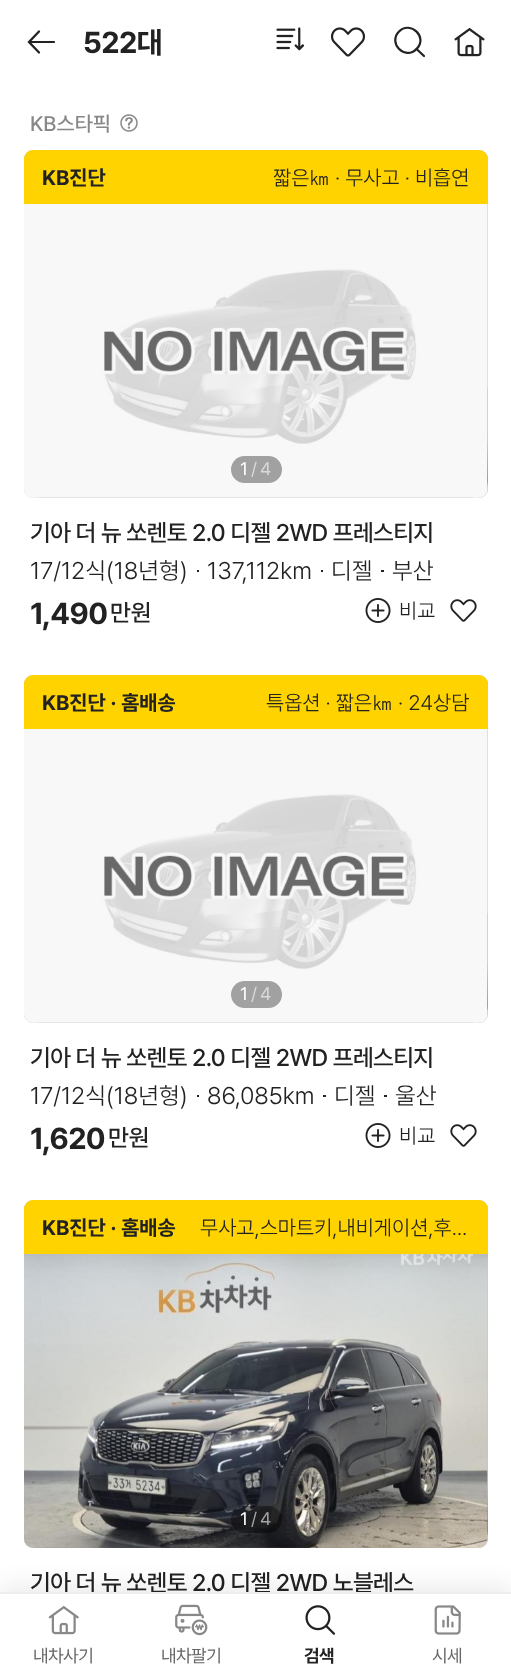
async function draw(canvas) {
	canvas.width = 511;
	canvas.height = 1677;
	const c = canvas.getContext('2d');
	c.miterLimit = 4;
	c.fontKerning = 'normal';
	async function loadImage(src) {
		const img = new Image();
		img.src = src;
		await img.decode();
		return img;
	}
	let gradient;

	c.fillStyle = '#fff';
	c.fillRect(0, 0, 511, 1677);
	c.beginPath();
	c.moveTo(39, 31.5);
	c.lineTo(29, 42);
	c.lineTo(39, 52.5);
	c.strokeStyle = '#222';
	c.lineWidth = 2.3;
	c.lineCap = 'round';
	c.stroke();
	c.beginPath();
	c.moveTo(30, 42);
	c.lineTo(54, 42);
	c.lineWidth = 2.2;
	c.stroke();
	c.letterSpacing = '-0.6px';
	c.font = 'bold 30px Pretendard';
	c.fillStyle = '#222';
	c.fillText('522대', 83, 53);
	c.drawImage(await loadImage('img1.png'), 276, 27, 29, 24);
	c.drawImage(await loadImage('img2.png'), 330, 27, 36, 30);
	c.beginPath();
	c.moveTo(416.5, 49);
	c.bezierCurveTo(405, 61, 387.5, 43, 399, 31.5);
	c.bezierCurveTo(410.5, 20, 428.5, 37.5, 416.5, 49);
	c.closePath();
	c.lineCap = 'butt';
	c.lineJoin = 'round';
	c.stroke();
	c.beginPath();
	c.moveTo(424, 56);
	c.lineTo(416.5, 49);
	c.lineCap = 'round';
	c.stroke();
	c.drawImage(await loadImage('img3.png'), 454, 27, 31, 30);
	c.letterSpacing = '0px';
	c.font = '500 21px Pretendard';
	c.fillStyle = '#888';
	c.fillText('KB스타픽', 30, 131);
	c.drawImage(await loadImage('img4.png'), 120, 114, 18, 18);
	c.fillStyle = '#c6c6c6';
	c.beginPath();
	c.roundRect(24, 150, 464, 348, 9);
	c.fill();
	c.fillStyle = '#ffd300';
	c.beginPath();
	c.roundRect(24, 150, 464, 54, [9, 9, 0, 0]);
	c.fill();
	c.font = 'bold 21px Pretendard';
	c.fillStyle = '#222';
	c.fillText('KB진단', 42, 185);
	c.font = '300 21px Pretendard';
	c.fillText('짧은', 273, 185);
	c.font = '500 21px WenQuanYi Zen Hei';
	c.fillText('㎞', 309, 185);
	c.font = '300 21px Pretendard';
	c.fillText('· 무사고 · 비흡연', 335, 185);
	gradient = c.createLinearGradient(256, 498, 256, 435);
	gradient.addColorStop(0.2, '#777');
	gradient.addColorStop(1, '#c6c6c6');
	c.fillStyle = gradient;
	c.beginPath();
	c.roundRect(24, 435, 464, 63, [0, 0, 18, 18]);
	c.fill();
	c.drawImage(await loadImage('img5.png'), 24, 204, 464, 294);
	c.fillStyle = '#a1a1a1';
	c.beginPath();
	c.roundRect(231, 456, 51, 27, 13.5);
	c.fill();
	c.font = '18px Pretendard';
	c.fillStyle = '#fff';
	c.fillText('1', 240, 475);
	c.fillStyle = '#d9d9d9';
	c.fillText('/', 251, 475);
	c.fillText('4', 260, 475);
	c.letterSpacing = '-0.6px';
	c.font = '500 24px Pretendard';
	c.fillStyle = '#222';
	c.fillText('기아 더 뉴 쏘렌토 2.0 디젤 2WD 프레스티지', 30, 541);
	c.letterSpacing = '0px';
	c.font = '300 24px Pretendard';
	c.fillText('17/12식(18년형)', 30, 579);
	c.fillRect(197, 570, 2, 2);
	c.fillText('137,112km', 207, 579);
	c.fillRect(321, 570, 2, 2);
	c.fillText('디젤', 331, 579);
	c.fillRect(381, 570, 3, 2);
	c.fillText('부산', 392, 579);
	c.letterSpacing = '-0.6px';
	c.font = 'bold 30px Pretendard';
	c.fillText('1,490', 30, 624);
	c.letterSpacing = '0px';
	c.font = '500 24px Pretendard';
	c.fillText('만원', 110, 621);
	c.drawImage(await loadImage('img6.png'), 365, 598, 26, 25);
	c.font = '300 21px Pretendard';
	c.fillText('비교', 399, 618);
	c.drawImage(await loadImage('img7.png'), 450, 599, 27, 23);
	c.fillStyle = '#c6c6c6';
	c.beginPath();
	c.roundRect(24, 675, 464, 348, 9);
	c.fill();
	c.fillStyle = '#ffd300';
	c.beginPath();
	c.roundRect(24, 675, 464, 54, [9, 9, 0, 0]);
	c.fill();
	c.font = 'bold 21px Pretendard';
	c.fillStyle = '#222';
	c.fillText('KB진단 · 홈배송', 42, 710);
	c.font = '300 21px Pretendard';
	c.fillText('특옵션 · 짧은', 266, 710);
	c.font = '500 21px WenQuanYi Zen Hei';
	c.fillText('㎞', 372, 710);
	c.font = '300 21px Pretendard';
	c.fillText('· 24상담', 398, 710);
	gradient = c.createLinearGradient(256, 1023, 256, 960);
	gradient.addColorStop(0.2, '#777');
	gradient.addColorStop(1, '#c6c6c6');
	c.fillStyle = gradient;
	c.beginPath();
	c.roundRect(24, 960, 464, 63, [0, 0, 18, 18]);
	c.fill();
	c.drawImage(await loadImage('img8.png'), 24, 729, 464, 294);
	c.fillStyle = '#a1a1a1';
	c.beginPath();
	c.roundRect(231, 981, 51, 27, 13.5);
	c.fill();
	c.font = '18px Pretendard';
	c.fillStyle = '#fff';
	c.fillText('1', 240, 1000);
	c.fillStyle = '#d9d9d9';
	c.fillText('/', 251, 1000);
	c.fillText('4', 260, 1000);
	c.letterSpacing = '-0.6px';
	c.font = '500 24px Pretendard';
	c.fillStyle = '#222';
	c.fillText('기아 더 뉴 쏘렌토 2.0 디젤 2WD 프레스티지', 30, 1066);
	c.letterSpacing = '0px';
	c.font = '300 24px Pretendard';
	c.fillText('17/12식(18년형)', 30, 1104);
	c.fillRect(197, 1095, 2, 2);
	c.fillText('86,085km', 207, 1104);
	c.fillRect(323, 1095, 3, 2);
	c.fillText('디젤', 334, 1104);
	c.fillRect(384, 1095, 3, 2);
	c.fillText('울산', 395, 1104);
	c.letterSpacing = '-0.6px';
	c.font = 'bold 30px Pretendard';
	c.fillText('1,620', 30, 1149);
	c.letterSpacing = '0px';
	c.font = '500 24px Pretendard';
	c.fillText('만원', 108, 1146);
	c.drawImage(await loadImage('img6.png'), 365, 1123, 26, 25);
	c.font = '300 21px Pretendard';
	c.fillText('비교', 399, 1143);
	c.drawImage(await loadImage('img7.png'), 450, 1124, 27, 23);
	c.fillStyle = '#c6c6c6';
	c.beginPath();
	c.roundRect(24, 1200, 464, 348, 9);
	c.fill();
	c.fillStyle = '#ffd300';
	c.beginPath();
	c.roundRect(24, 1200, 464, 54, [9, 9, 0, 0]);
	c.fill();
	c.font = 'bold 21px Pretendard';
	c.fillStyle = '#222';
	c.fillText('KB진단 · 홈배송', 42, 1235);
	c.font = '300 21px Pretendard';
	c.fillText('무사고,스마트키,내비게이션,후…', 200, 1235);
	gradient = c.createLinearGradient(256, 1548, 256, 1485);
	gradient.addColorStop(0.2, '#777');
	gradient.addColorStop(1, '#c6c6c6');
	c.fillStyle = gradient;
	c.beginPath();
	c.roundRect(24, 1485, 464, 63, [0, 0, 18, 18]);
	c.fill();
	c.drawImage(await loadImage('img9.png'), 24, 1254, 464, 294);
	c.fillStyle = '#00000059';
	c.beginPath();
	c.roundRect(231, 1506, 51, 27, 13.5);
	c.fill();
	c.font = '18px Pretendard';
	c.fillStyle = '#fff';
	c.fillText('1', 240, 1525);
	c.fillStyle = '#a5a5a6';
	c.fillText('/', 251, 1525);
	c.fillText('4', 260, 1525);
	c.letterSpacing = '-0.6px';
	c.font = '500 24px Pretendard';
	c.fillStyle = '#222';
	c.fillText('기아 더 뉴 쏘렌토 2.0 디젤 2WD 노블레스', 30, 1591);
	c.fillStyle = '#00000014';
	c.filter = 'blur(12px)';
	c.beginPath();
	c.rect(0, 1586, 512, 85);
	c.fill();
	c.filter = 'none';
	c.fillStyle = '#fff';
	c.fillRect(0, 1594, 511, 83);
	c.fillStyle = '#eee';
	c.fillRect(0, 1592, 511, 2);
	c.drawImage(await loadImage('img10.png'), 48, 1605, 31, 30);
	c.letterSpacing = '-0.5px';
	c.font = '18px Pretendard';
	c.fillStyle = '#666';
	c.fillText('내차사기', 33, 1662);
	c.drawImage(await loadImage('img11.png'), 175, 1604, 33, 32);
	c.fillText('내차팔기', 161, 1662);
	c.drawImage(await loadImage('img12.png'), 305, 1605, 30, 30);
	c.font = 'bold 18px Pretendard';
	c.fillStyle = '#222';
	c.fillText('검색', 304, 1662);
	c.drawImage(await loadImage('img13.png'), 434, 1605, 27, 30);
	c.font = '18px Pretendard';
	c.fillStyle = '#666';
	c.fillText('시세', 432, 1662);
}

draw(document.querySelector('canvas'));
